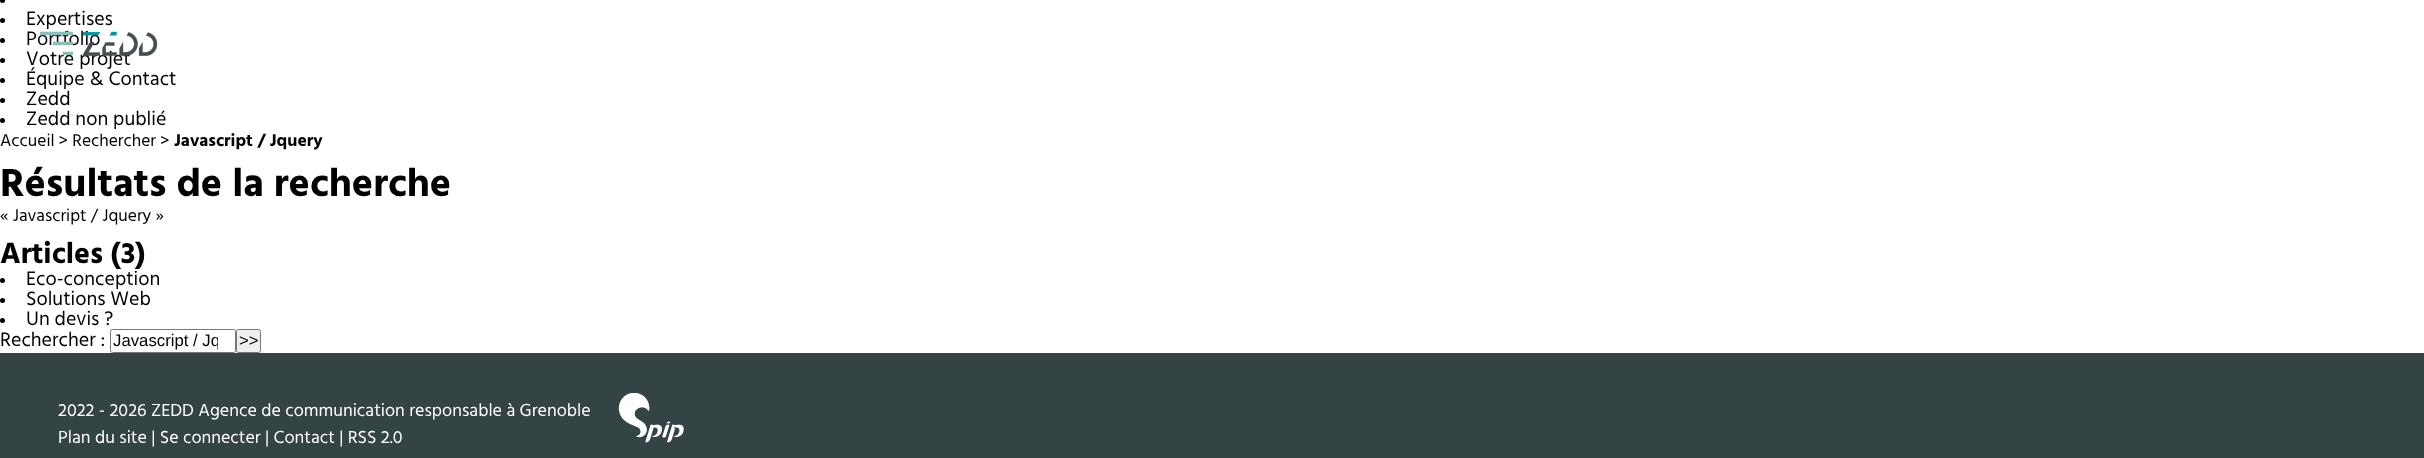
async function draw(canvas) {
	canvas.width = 2424;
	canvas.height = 458;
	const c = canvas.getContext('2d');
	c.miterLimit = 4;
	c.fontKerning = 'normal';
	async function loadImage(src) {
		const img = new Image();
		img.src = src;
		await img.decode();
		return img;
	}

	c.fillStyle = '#fff';
	c.fillRect(0, 0, 2424, 458);
	c.fillStyle = '#000';
	c.beginPath();
	c.arc(2.5, 0.5, 2.5, 0, 2 * Math.PI);
	c.fill();
	c.beginPath();
	c.arc(2.5, 20.5, 2.5, 0, 2 * Math.PI);
	c.fill();
	c.font = '20px Hind Madurai';
	c.fillText('Expertises', 26, 25);
	c.beginPath();
	c.arc(2.5, 40.5, 2.5, 0, 2 * Math.PI);
	c.fill();
	c.fillText('Portfolio', 26, 45);
	c.beginPath();
	c.arc(2.5, 60.5, 2.5, 0, 2 * Math.PI);
	c.fill();
	c.fillText('Votre projet', 26, 65);
	c.beginPath();
	c.arc(2.5, 80.5, 2.5, 0, 2 * Math.PI);
	c.fill();
	c.fillText('Équipe & Contact', 26, 85);
	c.beginPath();
	c.arc(2.5, 100.5, 2.5, 0, 2 * Math.PI);
	c.fill();
	c.fillText('Zedd', 26, 105);
	c.beginPath();
	c.arc(2.5, 120.5, 2.5, 0, 2 * Math.PI);
	c.fill();
	c.fillText('Zedd non publié', 26, 125);
	c.drawImage(await loadImage('img1.png'), 40, 31, 33, 24);
	c.drawImage(await loadImage('img2.png'), 83, 31, 75, 25);
	c.font = '17.5px Hind Madurai';
	c.fillText('Accueil > Rechercher >', 0, 146);
	c.font = 'bold 17.5px Hind Madurai';
	c.fillText('Javascript / Jquery', 174, 146);
	c.font = 'bold 40px Hind Madurai';
	c.fillText('Résultats de la recherche', 0, 196);
	c.font = '17.5px Hind Madurai';
	c.fillText('« Javascript / Jquery »', 0, 221);
	c.font = 'bold 30px Hind Madurai';
	c.fillText('Articles (3)', 0, 263);
	c.beginPath();
	c.arc(2.5, 280.5, 2.5, 0, 2 * Math.PI);
	c.fill();
	c.font = '20px Hind Madurai';
	c.fillText('Eco-conception', 26, 285);
	c.beginPath();
	c.arc(2.5, 300.5, 2.5, 0, 2 * Math.PI);
	c.fill();
	c.fillText('Solutions Web', 26, 305);
	c.beginPath();
	c.arc(2.5, 320.5, 2.5, 0, 2 * Math.PI);
	c.fill();
	c.fillText('Un devis ?', 26, 325);
	c.fillText('Rechercher :', 0, 346);
	c.beginPath();
	c.roundRect(110.5, 329.5, 125, 23, 2);
	c.strokeStyle = '#767676';
	c.stroke();
	c.save();
	c.beginPath();
	c.rect(113, 331, 105, 19);
	c.clip();
	c.font = '16.75px Liberation Sans';
	c.fillText('Javascript / Jq', 113, 346);
	c.restore();
	c.fillStyle = '#efefef';
	c.beginPath();
	c.roundRect(236.5, 329.5, 24, 23, 2);
	c.fill();
	c.stroke();
	c.font = '16.75px Liberation Sans';
	c.fillStyle = '#000';
	c.fillText('>>', 239, 346);
	c.fillStyle = '#344445';
	c.fillRect(0, 353, 2424, 105);
	c.font = '18px Hind Madurai';
	c.fillStyle = '#fff';
	c.fillText('2022 - 2026 ZEDD Agence de communication responsable à Grenoble', 58, 416);
	c.fillText('Plan du site | Se connecter | Contact | RSS 2.0', 58, 443);
	c.drawImage(await loadImage('img3.png'), 618, 393, 66, 50);
}

draw(document.querySelector('canvas'));
